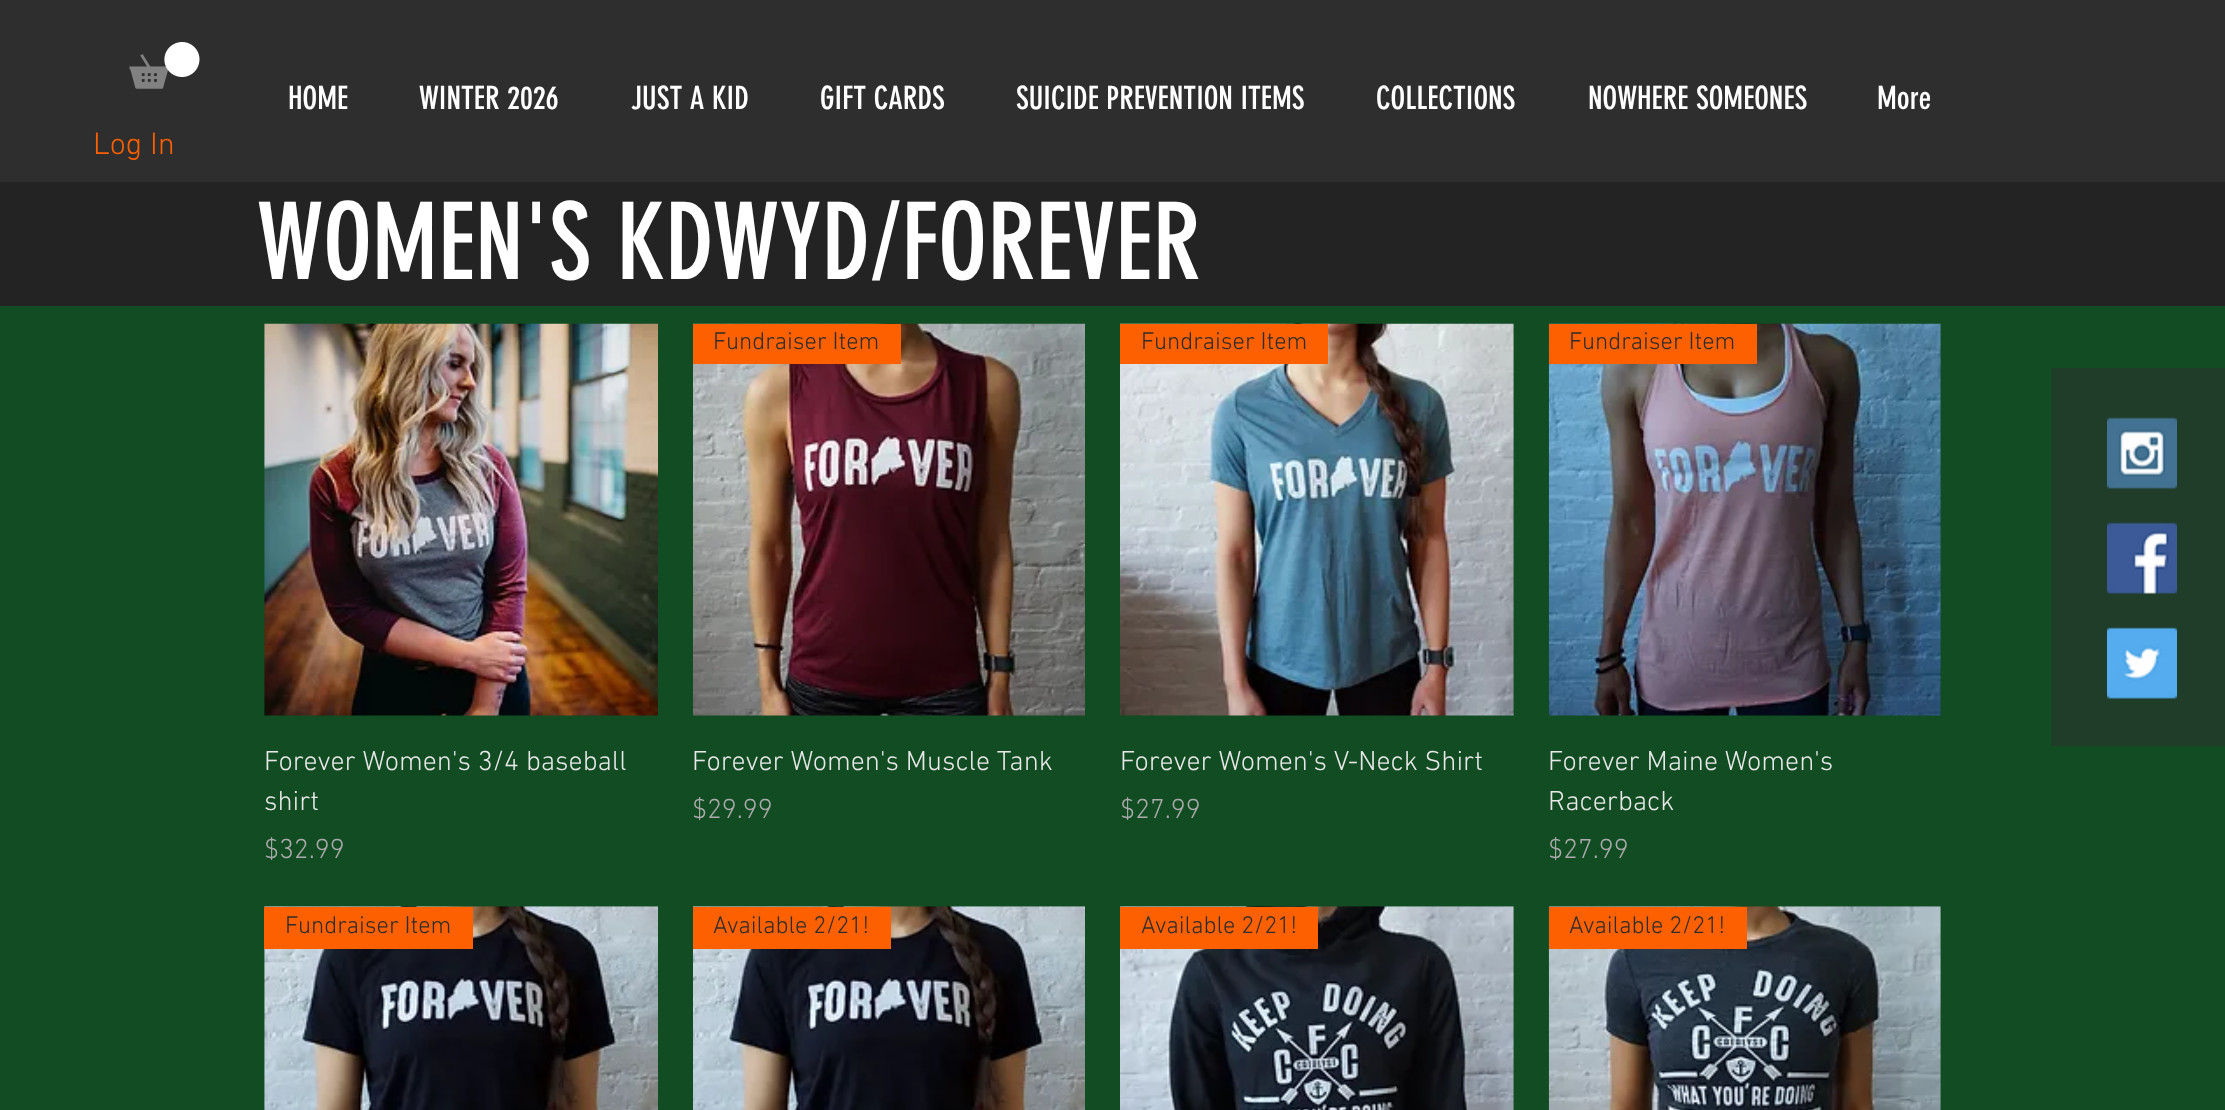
async function draw(canvas) {
	canvas.width = 2225;
	canvas.height = 1110;
	const c = canvas.getContext('2d');
	c.miterLimit = 4;
	c.fontKerning = 'normal';
	async function loadImage(src) {
		const img = new Image();
		img.src = src;
		await img.decode();
		return img;
	}

	c.fillStyle = '#114c22';
	c.fillRect(0, 0, 2225, 1110);
	c.fillStyle = '#2f2e2e';
	c.fillRect(0, 0, 2225, 182);
	c.font = '31.5px "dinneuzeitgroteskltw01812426"';
	c.fillStyle = '#fff';
	for (const [text, x, y] of [
		['HOME', 288, 109],
		['WINTER 2026', 419, 109],
		['JUST A KID', 631, 109],
		['GIFT CARDS', 820, 109],
		['SUICIDE PREVENTION ITEMS', 1016, 109],
		['COLLECTIONS', 1376, 109],
		['NOWHERE SOMEONES', 1588, 109],
		['More', 1877, 109],
	]) {
		c.fillText(text, x, y);
	}
	c.drawImage(await loadImage('img1.png'), 129, 42, 71, 47);
	c.font = '300 31.5px "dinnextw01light"';
	c.fillStyle = '#fc6000';
	c.fillText('Log In', 93, 154);
	c.fillStyle = '#242323';
	c.fillRect(0, 182, 2225, 124);
	c.font = '105px "dinneuzeitgroteskltw01812426"';
	c.fillStyle = '#fff';
	c.fillText('WOMEN\'S KDWYD/FOREVER', 257, 279);
	c.drawImage(await loadImage('img2.png'), 264, 323, 394, 393);
	c.font = '300 28px "dinnextw01light"';
	c.fillStyle = '#e8e8e8';
	c.fillText('Forever Women\'s 3/4 baseball', 264, 770);
	c.fillText('shirt', 264, 810);
	c.fillStyle = '#ababab';
	c.fillText('$32.99', 264, 858);
	c.drawImage(await loadImage('img3.png'), 693, 323, 392, 393);
	c.fillStyle = '#fc6000';
	c.fillRect(693, 324, 208, 40);
	c.font = '300 24.5px "dinnextw01light"';
	c.fillStyle = '#2d2d2d';
	c.fillText('Fundraiser Item', 713, 349);
	c.font = '300 28px "dinnextw01light"';
	c.fillStyle = '#e8e8e8';
	c.fillText('Forever Women\'s Muscle Tank', 692, 770);
	c.fillStyle = '#ababab';
	c.fillText('$29.99', 692, 818);
	c.drawImage(await loadImage('img4.png'), 1120, 323, 394, 393);
	c.fillStyle = '#fc6000';
	c.fillRect(1120, 324, 208, 40);
	c.font = '300 24.5px "dinnextw01light"';
	c.fillStyle = '#2d2d2d';
	c.fillText('Fundraiser Item', 1141, 349);
	c.font = '300 28px "dinnextw01light"';
	c.fillStyle = '#e8e8e8';
	c.fillText('Forever Women\'s V-Neck Shirt', 1120, 770);
	c.fillStyle = '#ababab';
	c.fillText('$27.99', 1120, 818);
	c.drawImage(await loadImage('img5.png'), 1548, 323, 393, 393);
	c.fillStyle = '#fc6000';
	c.fillRect(1549, 324, 208, 40);
	c.font = '300 24.5px "dinnextw01light"';
	c.fillStyle = '#2d2d2d';
	c.fillText('Fundraiser Item', 1569, 349);
	c.font = '300 28px "dinnextw01light"';
	c.fillStyle = '#e8e8e8';
	c.fillText('Forever Maine Women\'s', 1548, 770);
	c.fillText('Racerback', 1548, 810);
	c.fillStyle = '#ababab';
	c.fillText('$27.99', 1548, 858);
	c.drawImage(await loadImage('img6.png'), 264, 906, 394, 204);
	c.fillStyle = '#fc6000';
	c.fillRect(264, 907, 209, 42);
	c.font = '300 24.5px "dinnextw01light"';
	c.fillStyle = '#2d2d2d';
	c.fillText('Fundraiser Item', 285, 933);
	c.drawImage(await loadImage('img7.png'), 693, 906, 392, 204);
	c.fillStyle = '#fc6000';
	c.fillRect(693, 907, 198, 42);
	c.fillStyle = '#2d2d2d';
	c.fillText('Available 2/21!', 713, 933);
	c.drawImage(await loadImage('img8.png'), 1120, 906, 394, 204);
	c.fillStyle = '#fc6000';
	c.fillRect(1120, 907, 198, 42);
	c.fillStyle = '#2d2d2d';
	c.fillText('Available 2/21!', 1141, 933);
	c.drawImage(await loadImage('img9.png'), 1548, 906, 393, 204);
	c.fillStyle = '#fc6000';
	c.fillRect(1549, 907, 198, 42);
	c.fillStyle = '#2d2d2d';
	c.fillText('Available 2/21!', 1569, 933);
	c.fillStyle = '#1f3d28';
	c.fillRect(2051, 368, 174, 378);
	c.drawImage(await loadImage('img10.png'), 2107, 417, 70, 72);
	c.drawImage(await loadImage('img11.png'), 2107, 522, 70, 72);
	c.drawImage(await loadImage('img12.png'), 2107, 627, 70, 72);
}

draw(document.querySelector('canvas'));
